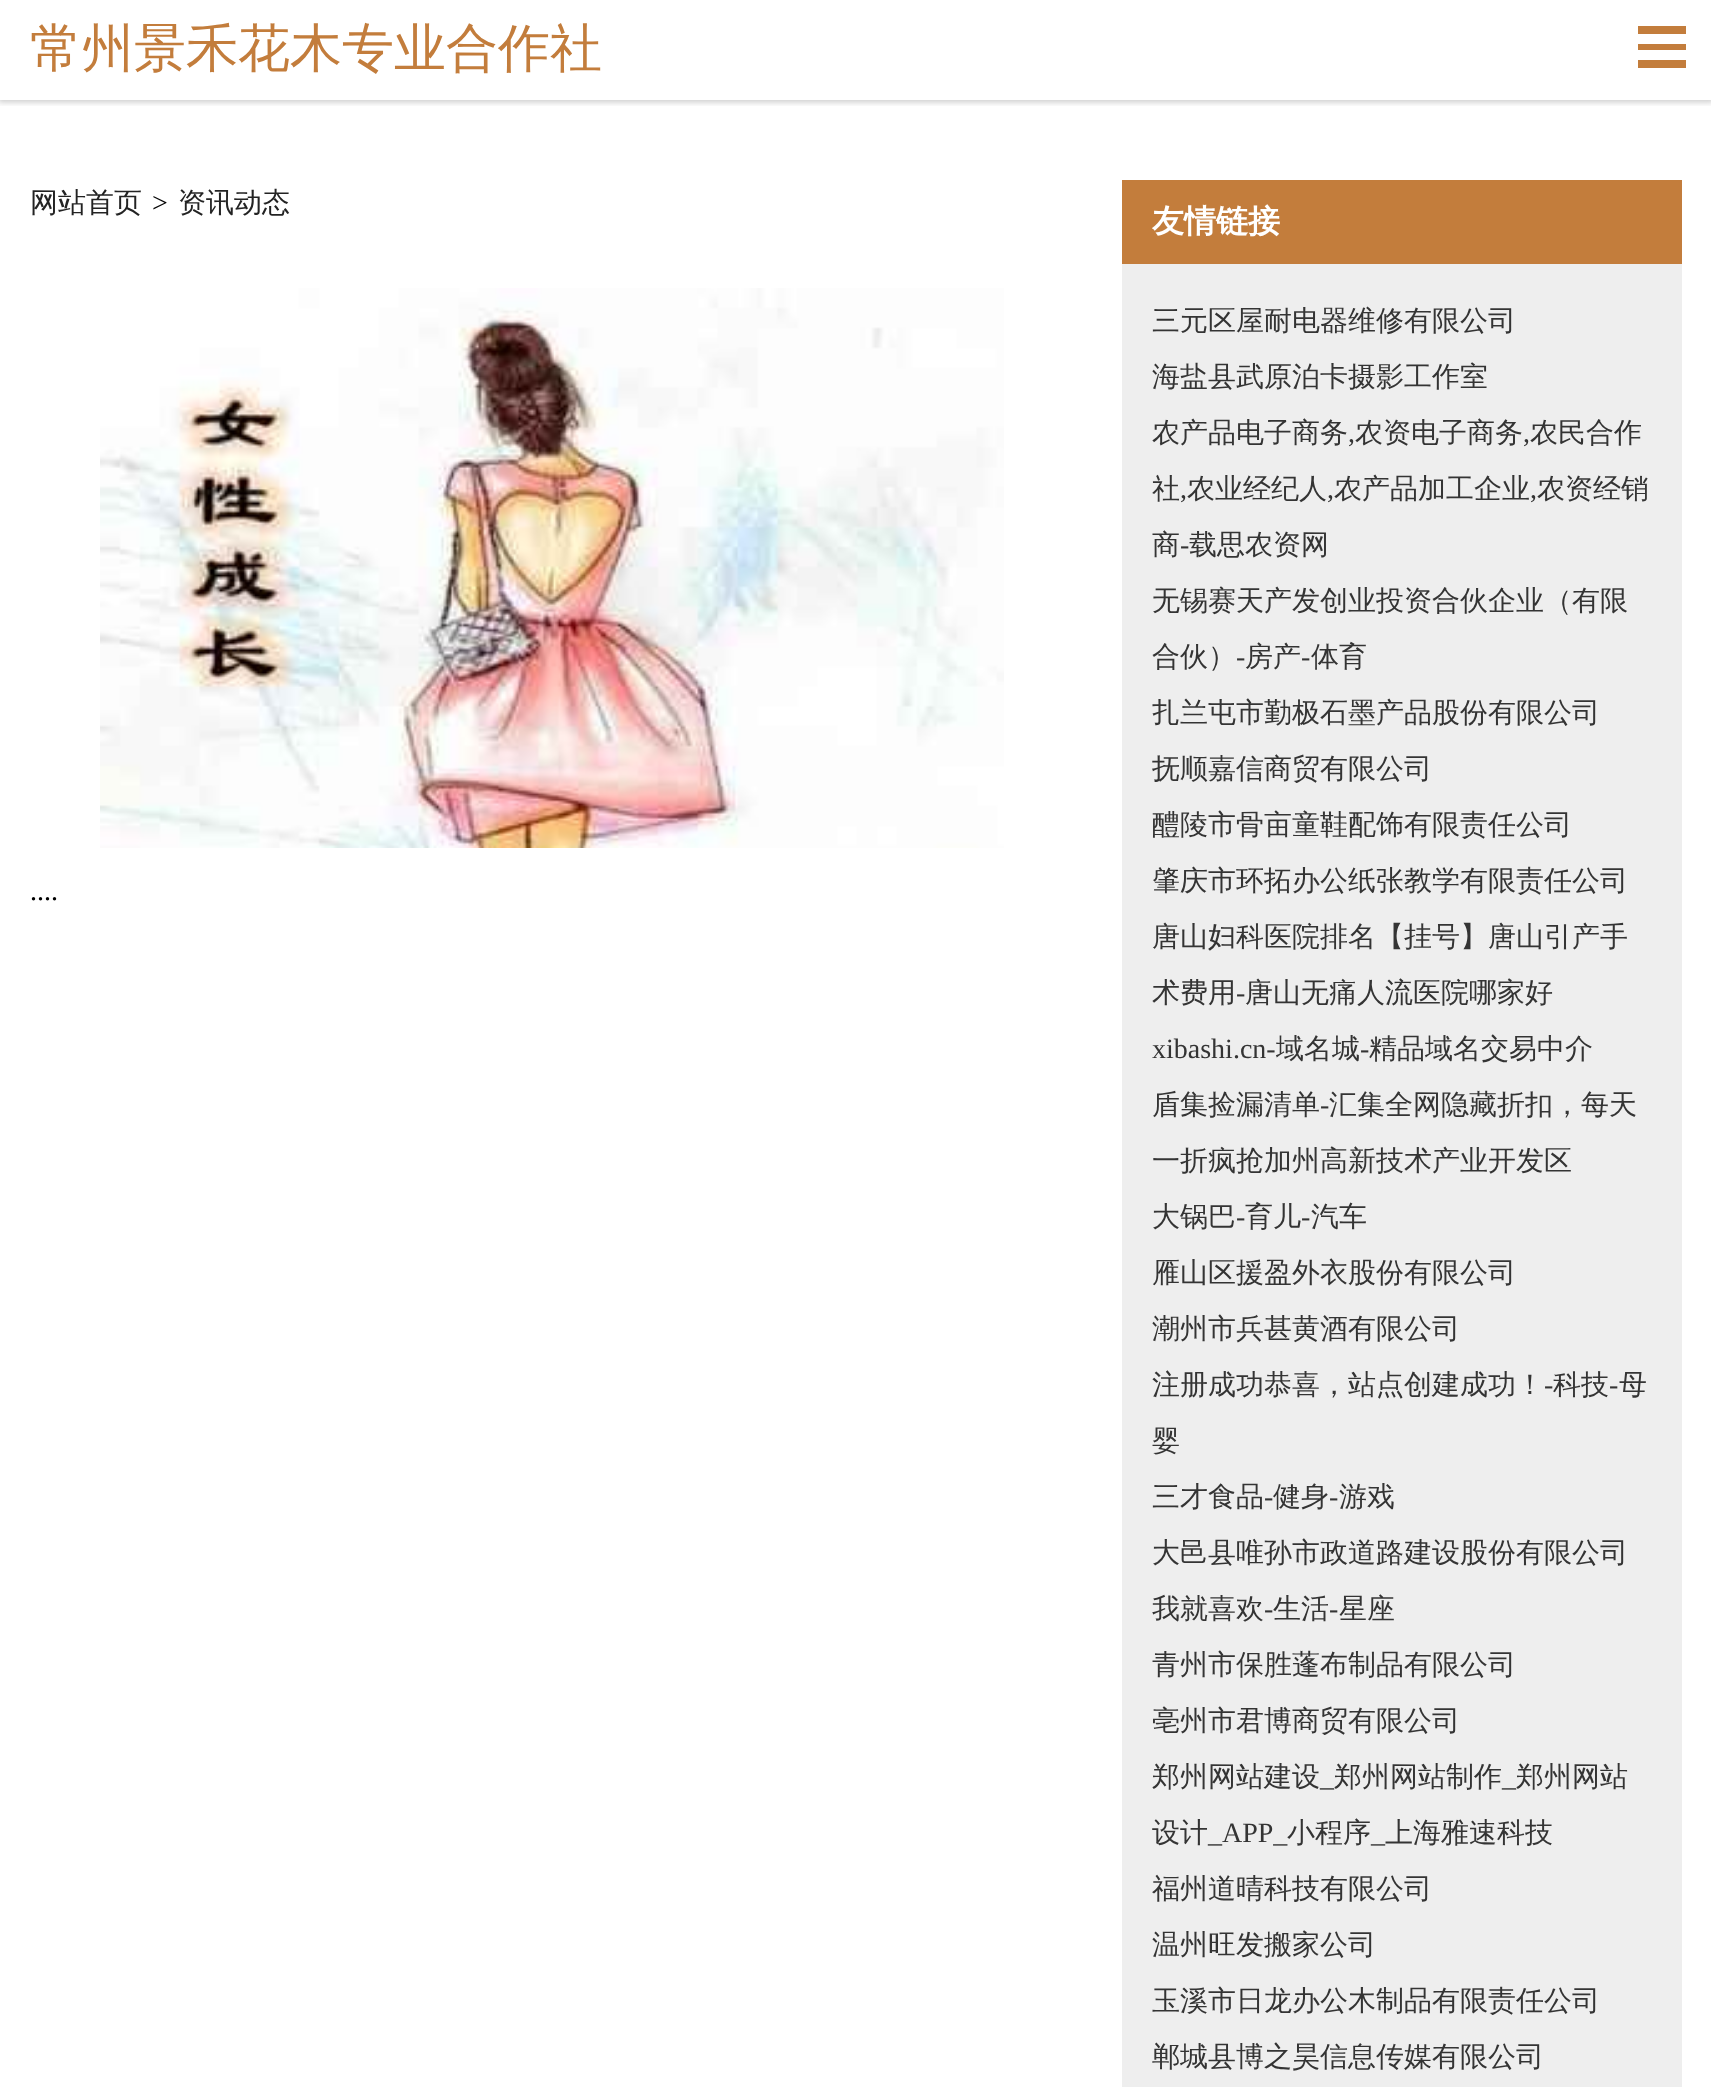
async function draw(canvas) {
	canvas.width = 1711;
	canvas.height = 2087;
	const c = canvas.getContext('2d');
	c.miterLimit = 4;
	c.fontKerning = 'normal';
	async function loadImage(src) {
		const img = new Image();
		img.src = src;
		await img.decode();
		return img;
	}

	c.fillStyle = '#fff';
	c.fillRect(0, 0, 1711, 2087);
	c.save();
	c.beginPath();
	c.rect(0, 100, 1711, 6);
	c.clip();
	c.fillStyle = '#00000036';
	c.filter = 'blur(3px)';
	c.beginPath();
	c.rect(-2, -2, 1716, 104);
	c.fill();
	c.filter = 'none';
	c.restore();
	c.font = '500 52px WenQuanYi Zen Hei';
	c.fillStyle = '#c37d3c';
	c.fillText('常州景禾花木专业合作社', 30, 66);
	for (const [x, y, w, h, color] of [
		[1638, 26, 48, 42, '#c37d3c'],
		[1638, 34, 48, 10, '#fff'],
		[1638, 50, 48, 10, '#fff'],
	]) {
		c.fillStyle = color;
		c.fillRect(x, y, w, h);
	}
	c.font = '500 28px WenQuanYi Zen Hei';
	c.fillStyle = '#232323';
	c.fillText('网站首页', 30, 212);
	c.font = '28px Liberation Serif';
	c.fillStyle = '#000';
	c.fillText('>', 152, 212);
	c.font = '500 28px WenQuanYi Zen Hei';
	c.fillStyle = '#232323';
	c.fillText('资讯动态', 178, 212);
	c.drawImage(await loadImage('img1.png'), 100, 288, 904, 560);
	c.font = '28px Liberation Serif';
	c.fillStyle = '#000';
	c.fillText('....', 30, 900);
	c.fillStyle = '#eee';
	c.fillRect(1122, 264, 560, 1823);
	c.fillStyle = '#c37d3c';
	c.fillRect(1122, 180, 560, 84);
	c.font = 'bold 32px WenQuanYi Zen Hei';
	c.fillStyle = '#fff';
	c.fillText('友情链接', 1152, 232);
	c.font = '500 28px WenQuanYi Zen Hei';
	c.fillStyle = '#343434';
	for (const [text, x, y] of [
		['三元区屋耐电器维修有限公司', 1152, 330],
		['海盐县武原泊卡摄影工作室', 1152, 386],
		['农产品电子商务', 1152, 442],
	]) {
		c.fillText(text, x, y);
	}
	c.font = '28px Liberation Serif';
	c.fillText(',', 1348, 442);
	c.font = '500 28px WenQuanYi Zen Hei';
	c.fillText('农资电子商务', 1355, 442);
	c.font = '28px Liberation Serif';
	c.fillText(',', 1523, 442);
	c.font = '500 28px WenQuanYi Zen Hei';
	c.fillText('农民合作', 1530, 442);
	c.fillText('社', 1152, 498);
	c.font = '28px Liberation Serif';
	c.fillText(',', 1180, 498);
	c.font = '500 28px WenQuanYi Zen Hei';
	c.fillText('农业经纪人', 1187, 498);
	c.font = '28px Liberation Serif';
	c.fillText(',', 1327, 498);
	c.font = '500 28px WenQuanYi Zen Hei';
	c.fillText('农产品加工企业', 1334, 498);
	c.font = '28px Liberation Serif';
	c.fillText(',', 1530, 498);
	c.font = '500 28px WenQuanYi Zen Hei';
	c.fillText('农资经销', 1537, 498);
	c.fillText('商', 1152, 554);
	c.font = '28px Liberation Serif';
	c.fillText('-', 1180, 554);
	c.font = '500 28px WenQuanYi Zen Hei';
	for (const [text, x, y] of [
		['载思农资网', 1189, 554],
		['无锡赛天产发创业投资合伙企业（有限', 1152, 610],
		['合伙）', 1152, 666],
	]) {
		c.fillText(text, x, y);
	}
	c.font = '28px Liberation Serif';
	c.fillText('-', 1236, 666);
	c.font = '500 28px WenQuanYi Zen Hei';
	c.fillText('房产', 1245, 666);
	c.font = '28px Liberation Serif';
	c.fillText('-', 1301, 666);
	c.font = '500 28px WenQuanYi Zen Hei';
	for (const [text, x, y] of [
		['体育', 1311, 666],
		['扎兰屯市勤极石墨产品股份有限公司', 1152, 722],
		['抚顺嘉信商贸有限公司', 1152, 778],
		['醴陵市骨亩童鞋配饰有限责任公司', 1152, 834],
		['肇庆市环拓办公纸张教学有限责任公司', 1152, 890],
		['唐山妇科医院排名【挂号】唐山引产手', 1152, 946],
		['术费用', 1152, 1002],
	]) {
		c.fillText(text, x, y);
	}
	c.font = '28px Liberation Serif';
	c.fillText('-', 1236, 1002);
	c.font = '500 28px WenQuanYi Zen Hei';
	c.fillText('唐山无痛人流医院哪家好', 1245, 1002);
	c.font = '28px Liberation Serif';
	c.fillText('xibashi.cn-', 1152, 1058);
	c.font = '500 28px WenQuanYi Zen Hei';
	c.fillText('域名城', 1276, 1058);
	c.font = '28px Liberation Serif';
	c.fillText('-', 1360, 1058);
	c.font = '500 28px WenQuanYi Zen Hei';
	c.fillText('精品域名交易中介', 1369, 1058);
	c.fillText('盾集捡漏清单', 1152, 1114);
	c.font = '28px Liberation Serif';
	c.fillText('-', 1320, 1114);
	c.font = '500 28px WenQuanYi Zen Hei';
	for (const [text, x, y] of [
		['汇集全网隐藏折扣，每天', 1329, 1114],
		['一折疯抢加州高新技术产业开发区', 1152, 1170],
		['大锅巴', 1152, 1226],
	]) {
		c.fillText(text, x, y);
	}
	c.font = '28px Liberation Serif';
	c.fillText('-', 1236, 1226);
	c.font = '500 28px WenQuanYi Zen Hei';
	c.fillText('育儿', 1245, 1226);
	c.font = '28px Liberation Serif';
	c.fillText('-', 1301, 1226);
	c.font = '500 28px WenQuanYi Zen Hei';
	for (const [text, x, y] of [
		['汽车', 1311, 1226],
		['雁山区援盈外衣股份有限公司', 1152, 1282],
		['潮州市兵甚黄酒有限公司', 1152, 1338],
		['注册成功恭喜，站点创建成功！', 1152, 1394],
	]) {
		c.fillText(text, x, y);
	}
	c.font = '28px Liberation Serif';
	c.fillText('-', 1544, 1394);
	c.font = '500 28px WenQuanYi Zen Hei';
	c.fillText('科技', 1553, 1394);
	c.font = '28px Liberation Serif';
	c.fillText('-', 1609, 1394);
	c.font = '500 28px WenQuanYi Zen Hei';
	for (const [text, x, y] of [
		['母', 1619, 1394],
		['婴', 1152, 1450],
		['三才食品', 1152, 1506],
	]) {
		c.fillText(text, x, y);
	}
	c.font = '28px Liberation Serif';
	c.fillText('-', 1264, 1506);
	c.font = '500 28px WenQuanYi Zen Hei';
	c.fillText('健身', 1273, 1506);
	c.font = '28px Liberation Serif';
	c.fillText('-', 1329, 1506);
	c.font = '500 28px WenQuanYi Zen Hei';
	for (const [text, x, y] of [
		['游戏', 1339, 1506],
		['大邑县唯孙市政道路建设股份有限公司', 1152, 1562],
		['我就喜欢', 1152, 1618],
	]) {
		c.fillText(text, x, y);
	}
	c.font = '28px Liberation Serif';
	c.fillText('-', 1264, 1618);
	c.font = '500 28px WenQuanYi Zen Hei';
	c.fillText('生活', 1273, 1618);
	c.font = '28px Liberation Serif';
	c.fillText('-', 1329, 1618);
	c.font = '500 28px WenQuanYi Zen Hei';
	for (const [text, x, y] of [
		['星座', 1339, 1618],
		['青州市保胜蓬布制品有限公司', 1152, 1674],
		['亳州市君博商贸有限公司', 1152, 1730],
		['郑州网站建设', 1152, 1786],
	]) {
		c.fillText(text, x, y);
	}
	c.font = '28px Liberation Serif';
	c.fillText('_', 1320, 1786);
	c.font = '500 28px WenQuanYi Zen Hei';
	c.fillText('郑州网站制作', 1334, 1786);
	c.font = '28px Liberation Serif';
	c.fillText('_', 1502, 1786);
	c.font = '500 28px WenQuanYi Zen Hei';
	c.fillText('郑州网站', 1516, 1786);
	c.fillText('设计', 1152, 1842);
	c.font = '28px Liberation Serif';
	c.fillText('_APP_', 1208, 1842);
	c.font = '500 28px WenQuanYi Zen Hei';
	c.fillText('小程序', 1287, 1842);
	c.font = '28px Liberation Serif';
	c.fillText('_', 1371, 1842);
	c.font = '500 28px WenQuanYi Zen Hei';
	for (const [text, x, y] of [
		['上海雅速科技', 1385, 1842],
		['福州道晴科技有限公司', 1152, 1898],
		['温州旺发搬家公司', 1152, 1954],
		['玉溪市日龙办公木制品有限责任公司', 1152, 2010],
		['郸城县博之昊信息传媒有限公司', 1152, 2066],
	]) {
		c.fillText(text, x, y);
	}
}

draw(document.querySelector('canvas'));
